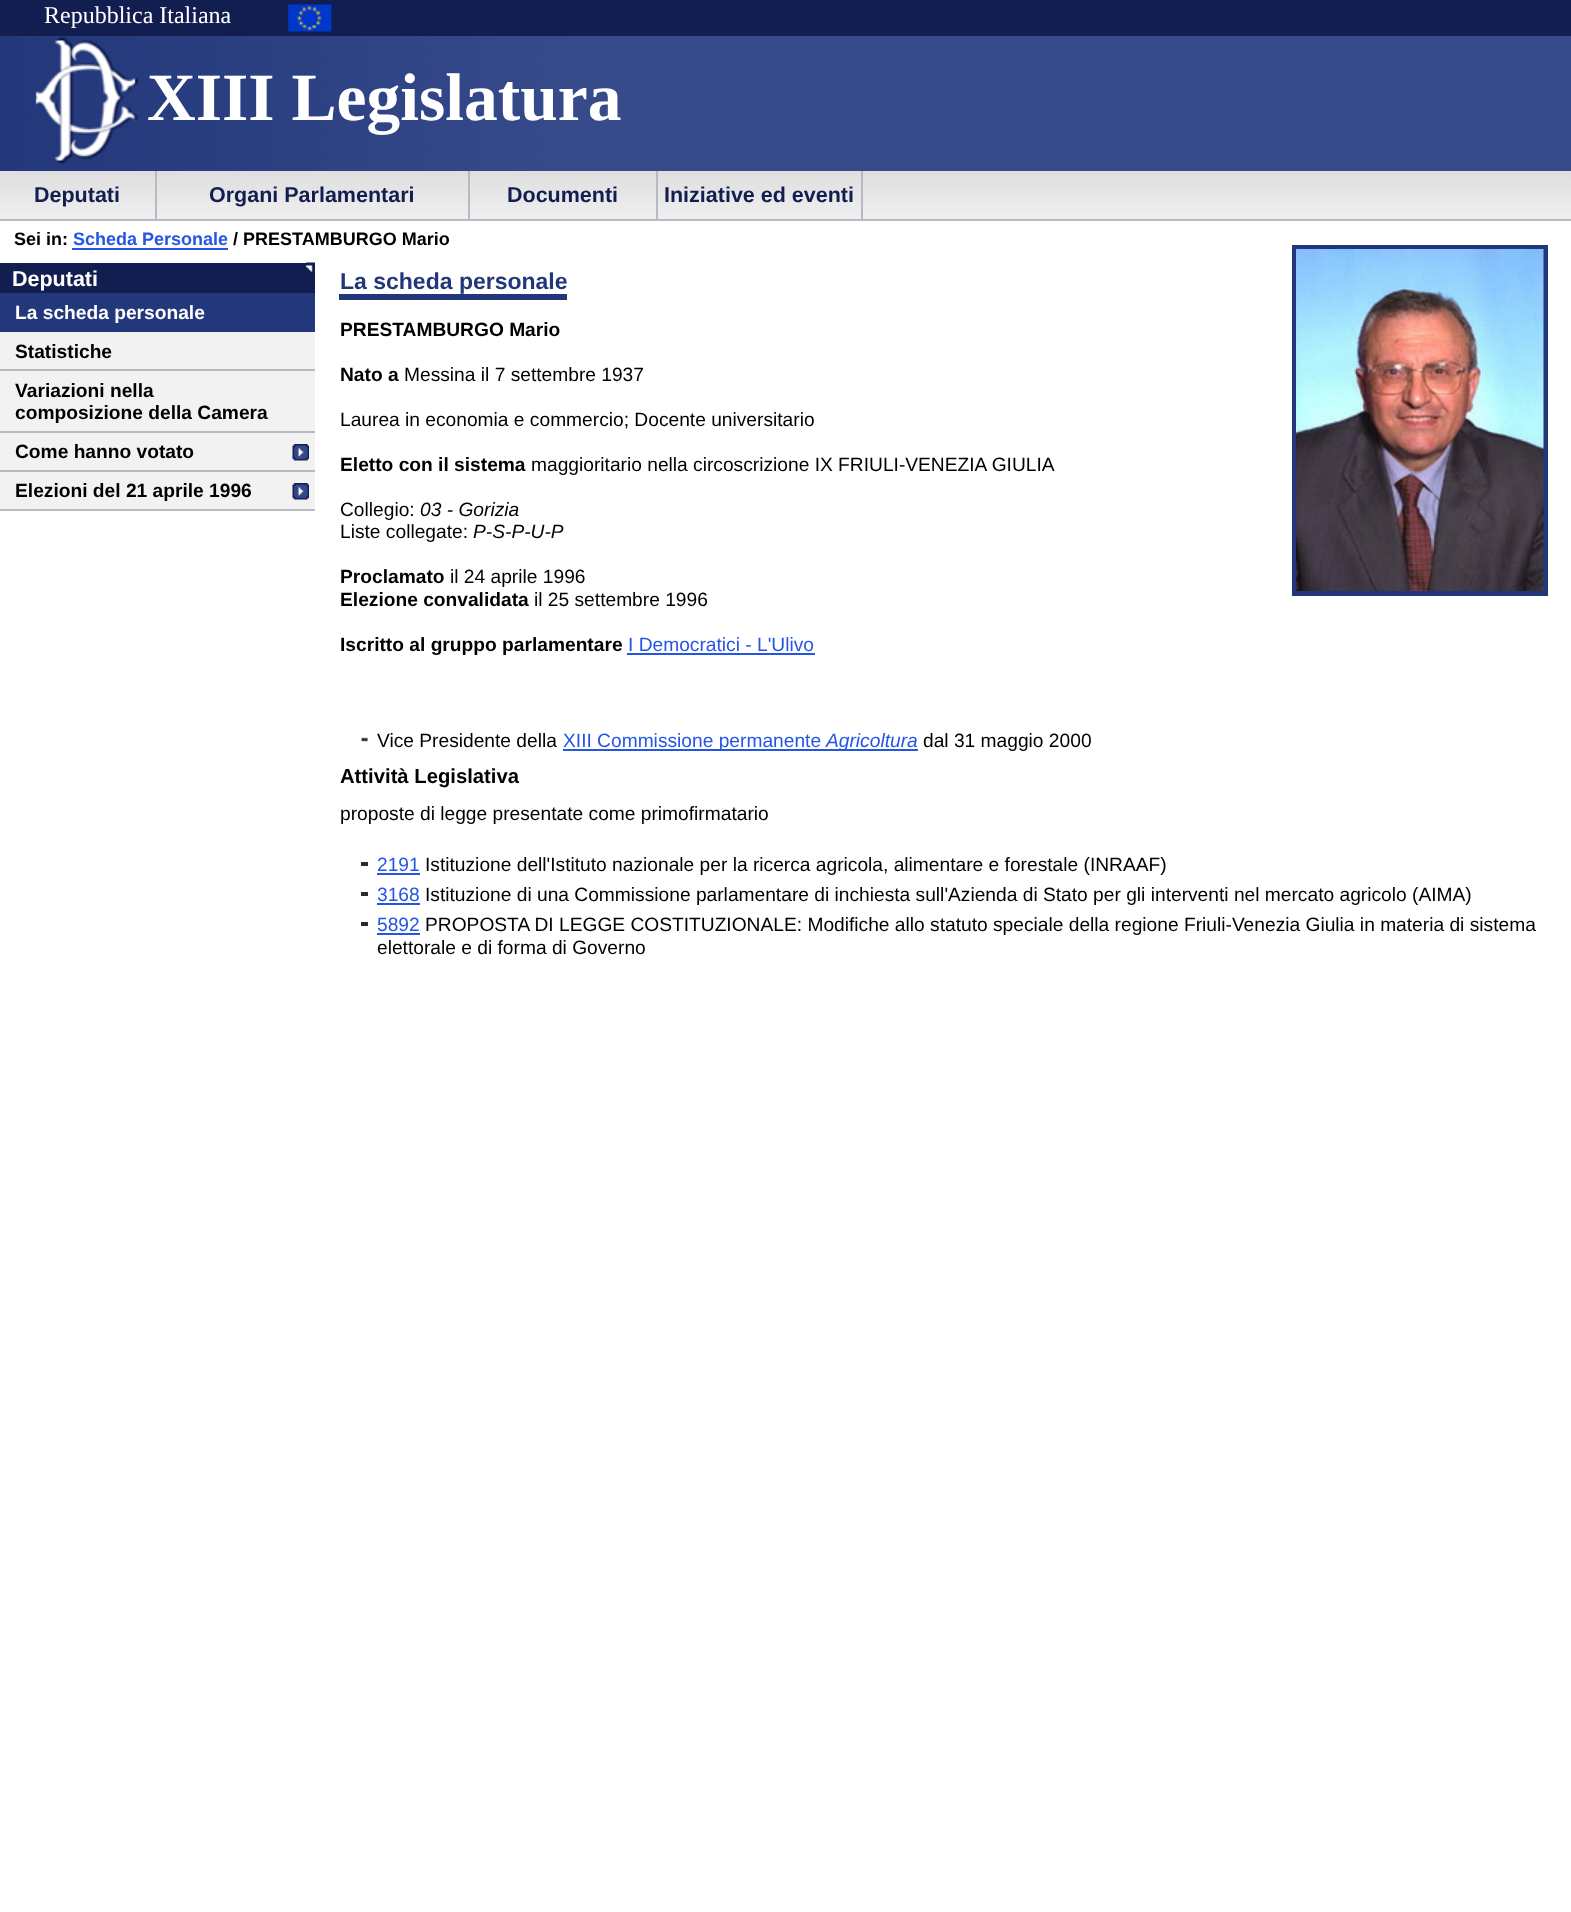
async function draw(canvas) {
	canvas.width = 1571;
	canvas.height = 1912;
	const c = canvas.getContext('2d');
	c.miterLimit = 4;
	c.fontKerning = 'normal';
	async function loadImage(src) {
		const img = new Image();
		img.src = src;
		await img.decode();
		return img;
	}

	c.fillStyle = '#fff';
	c.fillRect(0, 0, 1571, 1912);
	c.fillStyle = '#374a8a';
	c.fillRect(568, 36, 1003, 135);
	c.drawImage(await loadImage('img1.png'), 0, 36, 569, 135);
	c.fillStyle = '#121e50';
	c.fillRect(0, 0, 1571, 36);
	c.font = '24px Liberation Serif';
	c.fillStyle = '#fff';
	c.fillText('Repubblica Italiana', 44, 23);
	c.drawImage(await loadImage('img2.png'), 287, 4, 45, 28);
	c.drawImage(await loadImage('img3.png'), 35, 37, 104, 127);
	c.font = 'bold 67.5px Liberation Serif';
	c.fillText('XIII Legislatura', 147, 120);
	c.drawImage(await loadImage('img4.png'), 0, 171, 1571, 48);
	c.fillStyle = '#b7bac3';
	c.fillRect(0, 219, 1571, 2);
	c.fillRect(155, 171, 2, 48);
	c.font = 'bold 21.5px Liberation Sans';
	c.fillStyle = '#121e50';
	c.fillText('Deputati', 34, 202);
	c.fillStyle = '#b7bac3';
	c.fillRect(468, 171, 2, 48);
	c.fillStyle = '#121e50';
	c.fillText('Organi Parlamentari', 209, 202);
	c.fillStyle = '#b7bac3';
	c.fillRect(656, 171, 2, 48);
	c.fillStyle = '#121e50';
	c.fillText('Documenti', 507, 202);
	c.fillStyle = '#b7bac3';
	c.fillRect(861, 171, 2, 48);
	c.fillStyle = '#121e50';
	c.fillText('Iniziative ed eventi', 664, 202);
	c.font = 'bold 18px Liberation Sans';
	c.fillStyle = '#000';
	c.fillText('Sei in:', 14, 245);
	c.fillStyle = '#2555e5';
	c.fillText('Scheda Personale', 73, 245);
	c.fillRect(72, 248, 156, 2);
	c.fillStyle = '#000';
	c.fillText('/ PRESTAMBURGO Mario', 233, 245);
	c.font = 'bold 23px Liberation Sans';
	c.fillStyle = '#22377a';
	c.fillText('La scheda personale', 340, 289);
	c.fillRect(339, 294, 228, 6);
	c.strokeStyle = '#22377a';
	c.lineWidth = 5;
	c.strokeRect(1294.5, 247.5, 251, 346);
	c.drawImage(await loadImage('img5.png'), 1296, 249, 248, 342);
	c.font = 'bold 19.2px Liberation Sans';
	c.fillStyle = '#000';
	c.fillText('PRESTAMBURGO Mario', 340, 336);
	c.fillText('Nato a', 340, 381);
	c.font = '19.2px Liberation Sans';
	c.fillText('Messina il 7 settembre 1937', 404, 381);
	c.fillText('Laurea in economia e commercio; Docente universitario', 340, 426);
	c.font = 'bold 19.2px Liberation Sans';
	c.fillText('Eletto con il sistema', 340, 471);
	c.font = '19.2px Liberation Sans';
	c.fillText('maggioritario nella circoscrizione IX FRIULI-VENEZIA GIULIA', 531, 471);
	c.fillText('Collegio:', 340, 516);
	c.font = 'italic 19.2px Liberation Sans';
	c.fillText('03 - Gorizia', 420, 516);
	c.font = '19.2px Liberation Sans';
	c.fillText('Liste collegate:', 340, 538);
	c.font = 'italic 19.2px Liberation Sans';
	c.fillText('P-S-P-U-P', 473, 538);
	c.font = 'bold 19.2px Liberation Sans';
	c.fillText('Proclamato', 340, 583);
	c.font = '19.2px Liberation Sans';
	c.fillText('il 24 aprile 1996', 450, 583);
	c.font = 'bold 19.2px Liberation Sans';
	c.fillText('Elezione convalidata', 340, 606);
	c.font = '19.2px Liberation Sans';
	c.fillText('il 25 settembre 1996', 534, 606);
	c.font = 'bold 19.2px Liberation Sans';
	c.fillText('Iscritto al gruppo parlamentare', 340, 651);
	c.font = '19.2px Liberation Sans';
	c.fillStyle = '#2555e5';
	c.fillText('I Democratici - L\'Ulivo', 628, 651);
	c.fillRect(627, 653, 188, 2);
	c.drawImage(await loadImage('img6.png'), 361, 737, 7, 5);
	c.fillStyle = '#000';
	c.fillText('Vice Presidente della', 377, 747);
	c.fillStyle = '#2555e5';
	c.fillRect(563, 749, 355, 2);
	c.fillText('XIII Commissione permanente', 563, 747);
	c.font = 'italic 19.2px Liberation Sans';
	c.fillText('Agricoltura', 826, 747);
	c.font = '19.2px Liberation Sans';
	c.fillStyle = '#000';
	c.fillText('dal 31 maggio 2000', 923, 747);
	c.font = 'bold 20.25px Liberation Sans';
	c.fillText('Attività Legislativa', 340, 783);
	c.font = '19.2px Liberation Sans';
	c.fillText('proposte di legge presentate come primofirmatario', 340, 820);
	c.fillStyle = '#2a2a2a';
	c.fillRect(361, 862, 7, 4);
	c.fillStyle = '#2555e5';
	c.fillText('2191', 377, 871);
	c.fillRect(377, 873, 43, 2);
	c.fillStyle = '#000';
	c.fillText('Istituzione dell\'Istituto nazionale per la ricerca agricola, alimentare e forestale (INRAAF)', 425, 871);
	c.fillStyle = '#2a2a2a';
	c.fillRect(361, 892, 7, 4);
	c.fillStyle = '#2555e5';
	c.fillText('3168', 377, 901);
	c.fillRect(377, 903, 43, 2);
	c.fillStyle = '#000';
	c.fillText('Istituzione di una Commissione parlamentare di inchiesta sull\'Azienda di Stato per gli interventi nel mercato agricolo (AIMA)', 425, 901);
	c.fillStyle = '#2a2a2a';
	c.fillRect(361, 922, 7, 4);
	c.fillStyle = '#2555e5';
	c.fillText('5892', 377, 931);
	c.fillRect(377, 933, 43, 2);
	c.fillStyle = '#000';
	c.fillText('PROPOSTA DI LEGGE COSTITUZIONALE: Modifiche allo statuto speciale della regione Friuli-Venezia Giulia in materia di sistema', 425, 931);
	c.fillText('elettorale e di forma di Governo', 377, 954);
	c.fillStyle = '#f2f2f2';
	c.fillRect(0, 332, 315, 177);
	c.fillStyle = '#121e50';
	c.fillRect(0, 263, 315, 30);
	c.drawImage(await loadImage('img7.png'), 306, 262, 9, 10);
	c.font = 'bold 21.5px Liberation Sans';
	c.fillStyle = '#fff';
	c.fillText('Deputati', 12, 286);
	c.fillStyle = '#23387b';
	c.fillRect(0, 293, 315, 39);
	c.font = 'bold 19.2px Liberation Sans';
	c.fillStyle = '#fff';
	c.fillText('La scheda personale', 15, 319);
	c.fillStyle = '#b7bac3';
	c.fillRect(0, 369, 315, 2);
	c.fillStyle = '#000';
	c.fillText('Statistiche', 15, 358);
	c.fillStyle = '#b7bac3';
	c.fillRect(0, 431, 315, 2);
	c.fillStyle = '#000';
	c.fillText('Variazioni nella', 15, 397);
	c.fillText('composizione della Camera', 15, 419);
	c.drawImage(await loadImage('img8.png'), 292, 444, 17, 17);
	c.fillStyle = '#b7bac3';
	c.fillRect(0, 470, 315, 2);
	c.fillStyle = '#000';
	c.fillText('Come hanno votato', 15, 458);
	c.drawImage(await loadImage('img8.png'), 292, 483, 17, 17);
	c.fillStyle = '#b7bac3';
	c.fillRect(0, 509, 315, 2);
	c.fillStyle = '#000';
	c.fillText('Elezioni del 21 aprile 1996', 15, 497);
}

draw(document.querySelector('canvas'));
